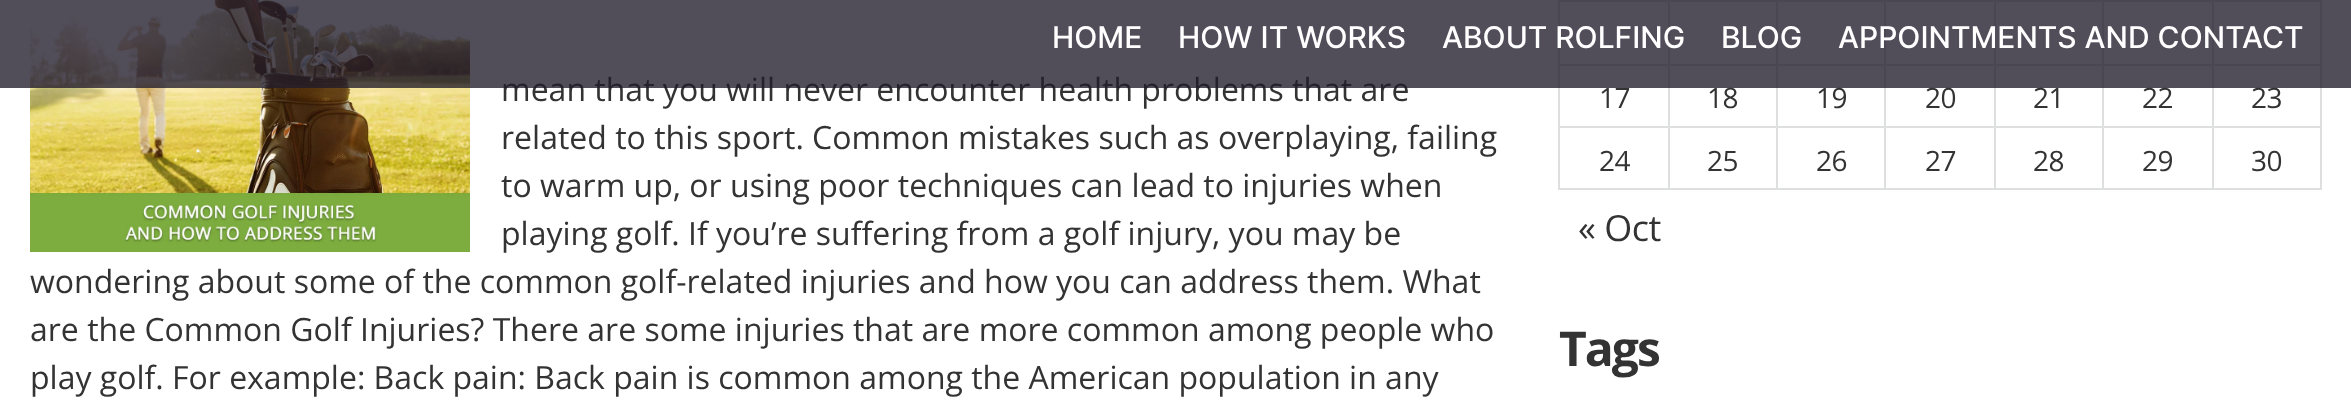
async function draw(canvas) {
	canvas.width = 2351;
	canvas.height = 404;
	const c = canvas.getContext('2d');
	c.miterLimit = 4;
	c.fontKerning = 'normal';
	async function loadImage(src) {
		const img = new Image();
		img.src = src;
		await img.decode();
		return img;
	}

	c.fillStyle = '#fff';
	c.fillRect(0, 0, 2351, 404);
	c.drawImage(await loadImage('img1.png'), 30, 0, 440, 252);
	c.font = '32px Open Sans';
	c.fillStyle = '#333';
	c.fillText('mean that you will never encounter health problems that are', 501, 101);
	for (const [x, y, w, h, color] of [
		[2320, 0, 2, 190, '#dedfdf'],
		[1558, 188, 764, 2, '#dedfdf'],
		[1558, 0, 2, 190, '#dedfdf'],
		[2212, 0, 108, 2, '#dedfdf'],
		[2212, 64, 108, 2, '#dedfdf'],
		[2212, 126, 108, 2, '#dedfdf'],
		[2212, 126, 2, 62, '#dedfdf'],
		[2102, 126, 112, 2, '#dedfdf'],
		[2212, 64, 2, 64, '#dedfdf'],
		[2102, 64, 112, 2, '#dedfdf'],
		[2212, 0, 2, 66, '#dedfdf'],
		[2102, 0, 112, 2, '#dedfdf'],
		[2102, 126, 2, 62, '#dedfdf'],
		[1994, 126, 110, 2, '#dedfdf'],
		[2102, 64, 2, 64, '#dedfdf'],
		[1994, 64, 110, 2, '#dedfdf'],
		[2102, 0, 2, 66, '#dedfdf'],
		[1994, 0, 110, 2, '#dedfdf'],
		[1994, 126, 2, 62, '#dedfdf'],
		[1884, 126, 112, 2, '#dedfdf'],
		[1994, 64, 2, 64, '#dedfdf'],
		[1884, 64, 112, 2, '#dedfdf'],
		[1994, 0, 2, 66, '#dedfdf'],
		[1884, 0, 112, 2, '#dedfdf'],
		[1884, 126, 2, 62, '#dedfdf'],
		[1776, 126, 110, 2, '#dedfdf'],
		[1884, 64, 2, 64, '#dedfdf'],
		[1776, 64, 110, 2, '#dedfdf'],
		[1884, 0, 2, 66, '#dedfdf'],
		[1776, 0, 110, 2, '#dedfdf'],
		[1776, 126, 2, 62, '#dedfdf'],
		[1668, 126, 110, 2, '#dedfdf'],
		[1776, 64, 2, 64, '#dedfdf'],
		[1668, 64, 110, 2, '#dedfdf'],
		[1776, 0, 2, 66, '#dedfdf'],
		[1668, 0, 110, 2, '#dedfdf'],
		[1668, 126, 2, 62, '#dedfdf'],
		[1560, 126, 110, 2, '#dedfdf'],
		[1668, 64, 2, 64, '#dedfdf'],
		[1560, 64, 110, 2, '#dedfdf'],
		[1668, 0, 2, 66, '#dedfdf'],
		[1560, 0, 110, 2, '#dedfdf'],
	]) {
		c.fillStyle = color;
		c.fillRect(x, y, w, h);
	}
	c.letterSpacing = '-0.5px';
	c.font = '28px Open Sans';
	c.fillStyle = '#333';
	for (const [text, x, y] of [
		['18', 1707, 108],
		['19', 1816, 108],
		['20', 1925, 108],
		['21', 2033, 108],
		['22', 2142, 108],
		['23', 2251, 108],
	]) {
		c.fillText(text, x, y);
	}
	c.fillStyle = '#201b2ac7';
	c.fillRect(0, 0, 2351, 88);
	c.letterSpacing = '0px';
	c.font = '500 30px Inter';
	c.fillStyle = '#fff';
	for (const [text, x, y] of [
		['HOME', 1052, 48],
		['HOW IT WORKS', 1178, 48],
		['ABOUT ROLFING', 1442, 48],
		['BLOG', 1721, 48],
		['APPOINTMENTS AND CONTACT', 1838, 48],
	]) {
		c.fillText(text, x, y);
	}
	c.font = '32px Open Sans';
	c.fillStyle = '#333';
	for (const [text, x, y] of [
		['related to this sport. Common mistakes such as overplaying, failing', 501, 149],
		['to warm up, or using poor techniques can lead to injuries when', 501, 197],
		['playing golf. If you’re suffering from a golf injury, you may be', 501, 245],
		['wondering about some of the common golf-related injuries and how you can address them. What', 30, 293],
		['are the Common Golf Injuries? There are some injuries that are more common among people who', 30, 341],
		['play golf. For example: Back pain: Back pain is common among the American population in any', 30, 389],
	]) {
		c.fillText(text, x, y);
	}
	c.letterSpacing = '-0.5px';
	c.font = '28px Open Sans';
	for (const [text, x, y] of [
		['17', 1599, 108],
		['24', 1599, 171],
		['25', 1707, 171],
		['26', 1816, 171],
		['27', 1925, 171],
		['28', 2033, 171],
		['29', 2142, 171],
		['30', 2251, 171],
	]) {
		c.fillText(text, x, y);
	}
	c.font = '36px Open Sans';
	c.fillText('« Oct', 1578, 241);
	c.letterSpacing = '-2px';
	c.font = 'bold 48px Open Sans';
	c.fillText('Tags', 1559, 366);
}

draw(document.querySelector('canvas'));
